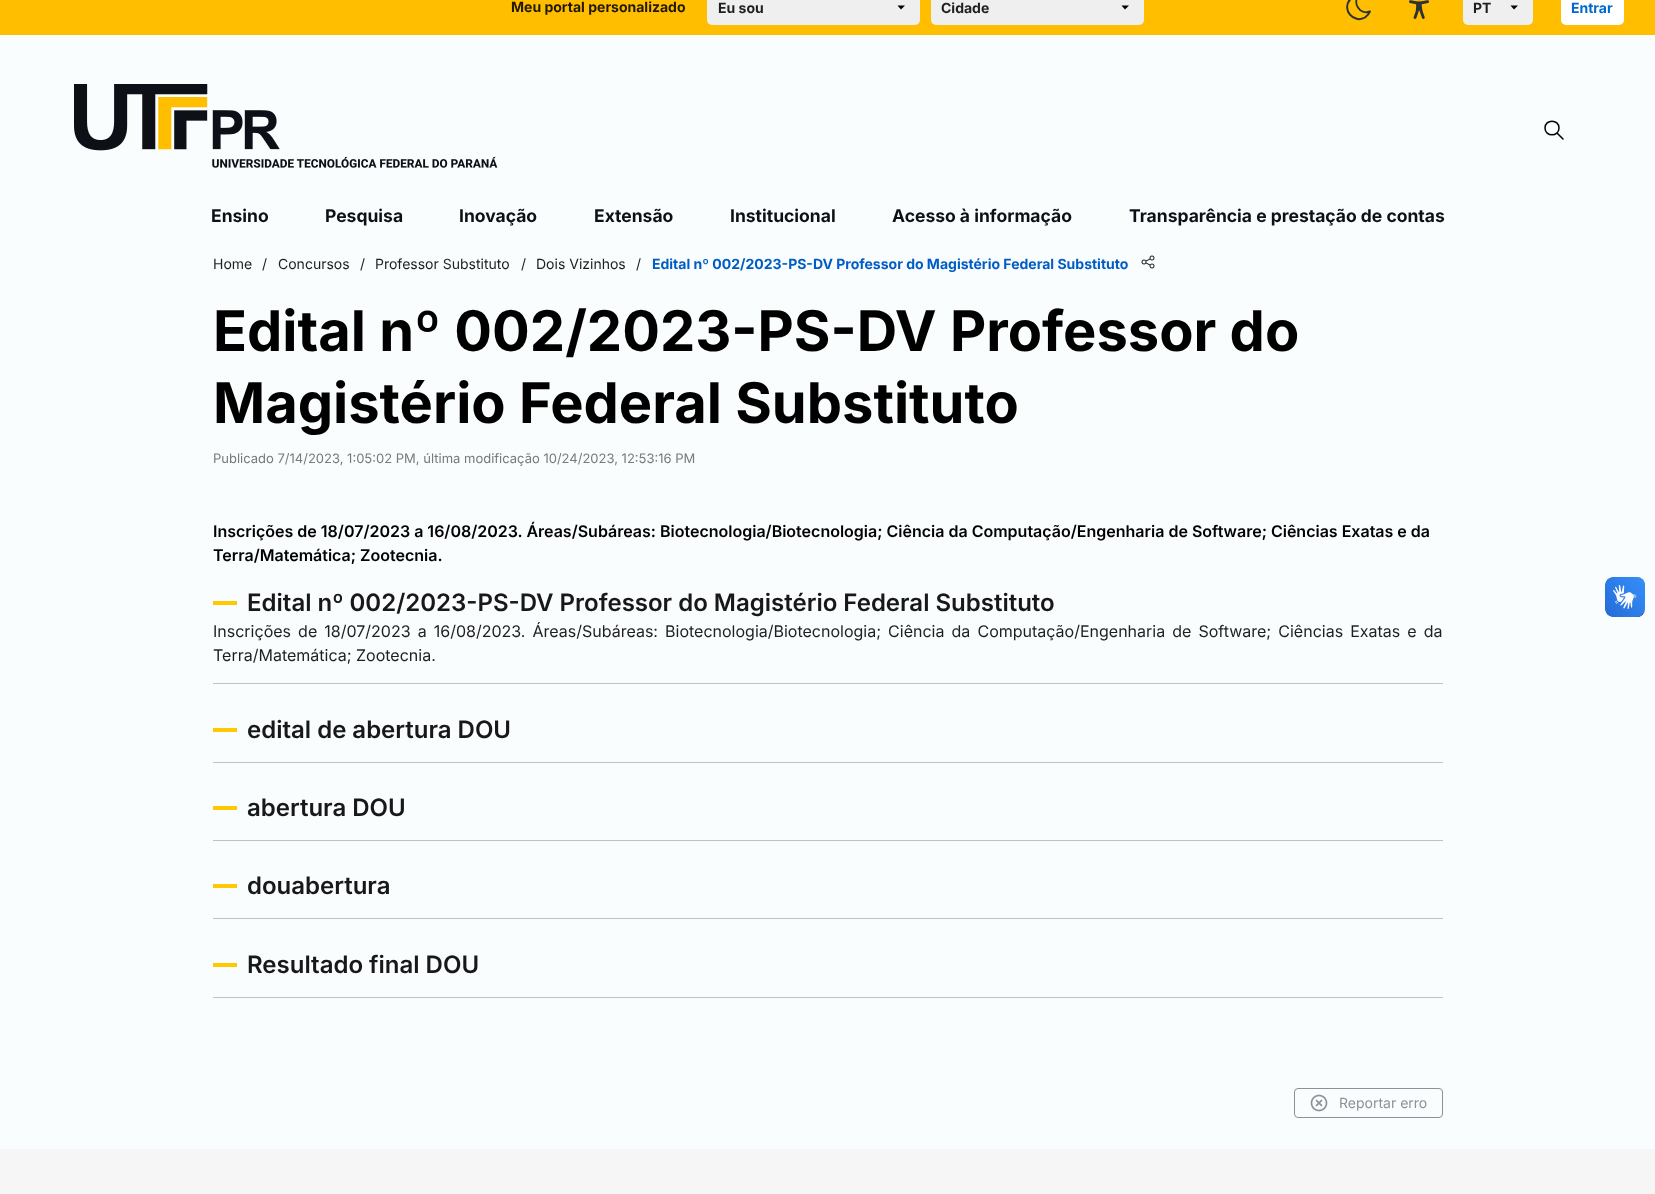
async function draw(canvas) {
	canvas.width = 1655;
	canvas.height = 1194;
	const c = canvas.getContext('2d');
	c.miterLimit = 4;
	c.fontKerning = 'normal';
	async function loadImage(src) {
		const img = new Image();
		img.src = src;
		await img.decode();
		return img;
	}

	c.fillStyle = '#fafdfd';
	c.fillRect(0, 0, 1655, 1194);
	c.fillStyle = '#ffbe00';
	c.fillRect(0, 0, 1655, 35);
	c.font = 'bold 14px Inter';
	c.fillStyle = '#211900';
	c.fillText('Meu portal personalizado', 511, 12);
	c.fillStyle = '#efefef';
	c.beginPath();
	c.roundRect(707, -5, 213, 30, 5);
	c.fill();
	c.fillStyle = '#000';
	c.beginPath();
	c.moveTo(897.5, 5.5);
	c.lineTo(901, 9.5);
	c.lineTo(905, 5.5);
	c.fill();
	c.fillStyle = '#1f1f1f';
	c.fillText('Eu sou', 718, 13);
	c.fillStyle = '#efefef';
	c.beginPath();
	c.roundRect(931, -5, 213, 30, 5);
	c.fill();
	c.fillStyle = '#000';
	c.beginPath();
	c.moveTo(1121.5, 5.5);
	c.lineTo(1125, 9.5);
	c.lineTo(1129, 5.5);
	c.fill();
	c.fillStyle = '#1f1f1f';
	c.fillText('Cidade', 941, 13);
	c.beginPath();
	c.moveTo(1359, -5);
	c.lineTo(1359.5, -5);
	c.bezierCurveTo(1351.5, 2.5, 1360, 15.5, 1370, 11.5);
	c.bezierCurveTo(1369, 14, 1367, 16, 1365, 17.5);
	c.bezierCurveTo(1353.5, 24, 1341.5, 9.5, 1350, -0.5);
	c.bezierCurveTo(1352, -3.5, 1355.5, -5, 1359, -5);
	c.closePath();
	c.strokeStyle = '#2e3132';
	c.lineWidth = 2;
	c.lineCap = 'round';
	c.lineJoin = 'round';
	c.stroke();
	c.drawImage(await loadImage('img1.png'), 1409, 0, 20, 19);
	c.fillStyle = '#efefef';
	c.beginPath();
	c.roundRect(1463, -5, 70, 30, 5);
	c.fill();
	c.fillStyle = '#000';
	c.beginPath();
	c.moveTo(1510.5, 5.5);
	c.lineTo(1514, 9.5);
	c.lineTo(1518, 5.5);
	c.fill();
	c.fillStyle = '#1f1f1f';
	c.fillText('PT', 1473, 13);
	c.fillStyle = '#fff';
	c.beginPath();
	c.roundRect(1561, -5, 63, 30, 5);
	c.fill();
	c.fillStyle = '#0169cd';
	c.fillText('Entrar', 1571, 13);
	c.drawImage(await loadImage('img2.png'), 74, 84, 424, 84);
	c.beginPath();
	c.moveTo(1563, 139);
	c.lineTo(1557, 133);
	c.moveTo(1545, 128);
	c.bezierCurveTo(1545, 137, 1559, 137, 1559, 128);
	c.bezierCurveTo(1559, 119, 1545, 119, 1545, 128);
	c.closePath();
	c.strokeStyle = '#000';
	c.lineWidth = 1.5;
	c.stroke();
	c.font = 'bold 17.5px Inter';
	c.fillStyle = '#0d1117';
	for (const [text, x, y] of [
		['Ensino', 211, 222],
		['Pesquisa', 325, 222],
		['Inovação', 459, 222],
		['Extensão', 594, 222],
		['Institucional', 730, 222],
		['Acesso à informação', 892, 222],
		['Transparência e prestação de contas', 1129, 222],
	]) {
		c.fillText(text, x, y);
	}
	c.font = '14px Inter';
	c.fillStyle = '#1f1f1f';
	for (const [text, x, y] of [
		['Home', 213, 269],
		['/', 262, 269],
		['Concursos', 278, 269],
		['/', 360, 269],
		['Professor Substituto', 375, 269],
		['/', 521, 269],
		['Dois Vizinhos', 536, 269],
		['/', 636, 269],
	]) {
		c.fillText(text, x, y);
	}
	c.font = 'bold 14px Inter';
	c.fillStyle = '#005dc5';
	c.fillText('Edital nº 002/2023-PS-DV Professor do Magistério Federal Substituto', 652, 269);
	c.drawImage(await loadImage('img3.png'), 1141, 255, 14, 14);
	c.font = 'bold 56px Inter';
	c.fillStyle = '#000';
	c.fillText('Edital nº 002/2023-PS-DV Professor do', 213, 351);
	c.fillText('Magistério Federal Substituto', 213, 423);
	c.font = '13px Inter';
	c.fillStyle = '#7a7a7a';
	c.fillText('Publicado 7/14/2023, 1:05:02 PM, última modificação 10/24/2023, 12:53:16 PM', 213, 463);
	c.font = '600 16px Inter';
	c.fillStyle = '#000';
	c.fillText('Inscrições de 18/07/2023 a 16/08/2023. Áreas/Subáreas: Biotecnologia/Biotecnologia; Ciência da Computação/Engenharia de Software; Ciências Exatas e da', 213, 537);
	c.fillText('Terra/Matemática; Zootecnia.', 213, 561);
	c.fillStyle = '#ffc800';
	c.fillRect(213, 601, 24, 4);
	c.font = '600 24px Inter';
	c.fillStyle = '#18181a';
	c.fillText('Edital nº 002/2023-PS-DV Professor do Magistério Federal Substituto', 247, 611);
	c.wordSpacing = '2.6px';
	c.font = '16px Inter';
	c.fillStyle = '#1f1f1f';
	c.fillText('Inscrições de 18/07/2023 a 16/08/2023. Áreas/Subáreas: Biotecnologia/Biotecnologia; Ciência da Computação/Engenharia de Software; Ciências Exatas e da', 213, 637);
	c.wordSpacing = '0px';
	c.fillText('Terra/Matemática; Zootecnia.', 213, 661);
	c.fillStyle = '#c1c1c1';
	c.fillRect(213, 683, 1230, 1);
	c.fillStyle = '#ffc800';
	c.fillRect(213, 728, 24, 4);
	c.font = '600 24px Inter';
	c.fillStyle = '#18181a';
	c.fillText('edital de abertura DOU', 247, 738);
	c.fillStyle = '#c1c1c1';
	c.fillRect(213, 762, 1230, 1);
	c.fillStyle = '#ffc800';
	c.fillRect(213, 806, 24, 4);
	c.fillStyle = '#18181a';
	c.fillText('abertura DOU', 247, 816);
	c.fillStyle = '#c1c1c1';
	c.fillRect(213, 840, 1230, 1);
	c.fillStyle = '#ffc800';
	c.fillRect(213, 884, 24, 4);
	c.fillStyle = '#18181a';
	c.fillText('douabertura', 247, 894);
	c.fillStyle = '#c1c1c1';
	c.fillRect(213, 918, 1230, 1);
	c.fillStyle = '#ffc800';
	c.fillRect(213, 963, 24, 4);
	c.fillStyle = '#18181a';
	c.fillText('Resultado final DOU', 247, 973);
	c.fillStyle = '#c1c1c1';
	c.fillRect(213, 997, 1230, 1);
	c.beginPath();
	c.roundRect(1294.5, 1088.5, 148, 29, 3.5);
	c.strokeStyle = '#8d9199';
	c.lineWidth = 1;
	c.lineJoin = 'miter';
	c.stroke();
	c.drawImage(await loadImage('img4.png'), 1310, 1094, 18, 18);
	c.font = '14px Inter';
	c.fillStyle = '#8d9199';
	c.fillText('Reportar erro', 1339, 1108);
	c.fillStyle = '#f6f6f6';
	c.fillRect(0, 1149, 1655, 45);
	c.drawImage(await loadImage('img5.png'), 1605, 577, 40, 40);
	c.drawImage(await loadImage('img6.png'), 1605, 577, 40, 40);
}

draw(document.querySelector('canvas'));
